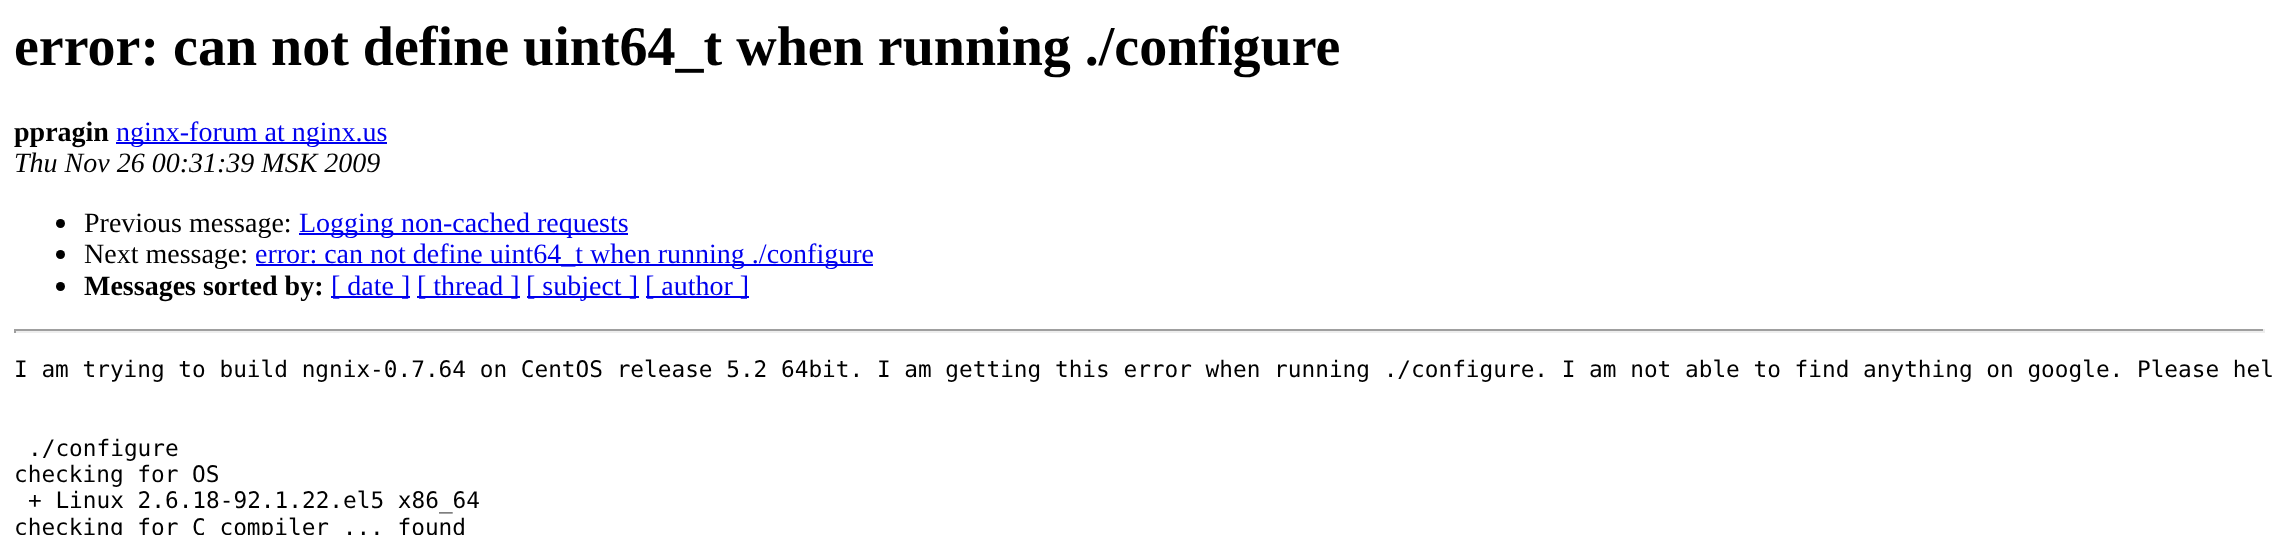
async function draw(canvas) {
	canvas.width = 2277;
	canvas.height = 535;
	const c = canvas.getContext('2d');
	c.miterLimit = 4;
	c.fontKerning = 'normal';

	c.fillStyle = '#fff';
	c.fillRect(0, 0, 2277, 535);
	c.font = 'bold 56px Liberation Serif';
	c.fillStyle = '#000';
	c.fillText('error: can not define uint64_t when running ./configure', 14, 65);
	c.font = 'bold 28px Liberation Serif';
	c.fillText('ppragin', 14, 141);
	c.fillStyle = '#00e';
	c.fillRect(116, 142, 271, 2);
	c.font = '28px Liberation Serif';
	c.fillText('nginx-forum at nginx.us', 116, 141);
	c.font = 'italic 28px Liberation Serif';
	c.fillStyle = '#000';
	c.fillText('Thu Nov 26 00:31:39 MSK 2009', 14, 172);
	c.beginPath();
	c.arc(60.5, 223.5, 4.5, 0, 2 * Math.PI);
	c.fill();
	c.font = '28px Liberation Serif';
	c.fillText('Previous message:', 84, 232);
	c.fillStyle = '#00e';
	c.fillRect(299, 233, 329, 2);
	c.fillText('Logging non-cached requests', 299, 232);
	c.fillStyle = '#000';
	c.beginPath();
	c.arc(60.5, 254.5, 4.5, 0, 2 * Math.PI);
	c.fill();
	c.fillText('Next message:', 84, 263);
	c.fillStyle = '#00e';
	c.fillRect(256, 264, 617, 2);
	c.fillText('error: can not define uint64_t when running ./configure', 255, 263);
	c.fillStyle = '#000';
	c.beginPath();
	c.arc(60.5, 286.5, 4.5, 0, 2 * Math.PI);
	c.fill();
	c.font = 'bold 28px Liberation Serif';
	c.fillText('Messages sorted by:', 84, 295);
	c.fillStyle = '#00e';
	c.fillRect(331, 296, 79, 2);
	c.font = '28px Liberation Serif';
	c.fillText('[ date ]', 331, 295);
	c.fillRect(417, 296, 103, 2);
	c.fillText('[ thread ]', 417, 295);
	c.fillRect(527, 296, 112, 2);
	c.fillText('[ subject ]', 526, 295);
	c.fillRect(646, 296, 103, 2);
	c.fillText('[ author ]', 645, 295);
	for (const [x, y, w, h, color] of [
		[14, 329, 2251, 2, '#9f9f9f'],
		[2263, 329, 2, 4, '#eee'],
		[14, 331, 2251, 2, '#eee'],
		[14, 329, 2, 4, '#9f9f9f'],
	]) {
		c.fillStyle = color;
		c.fillRect(x, y, w, h);
	}
	c.font = '22.75px DejaVu Sans Mono';
	c.fillStyle = '#000';
	for (const [text, x, y] of [
		['I am trying to build ngnix-0.7.64 on CentOS release 5.2 64bit. I am getting this error when running ./configure. I am not able to find anything on google. Please hel', 14, 377],
		['./configure', 28, 456],
		['checking for OS', 14, 482],
		['+ Linux 2.6.18-92.1.22.el5 x86_64', 28, 508],
		['checking for C compiler ... found', 14, 535],
	]) {
		c.fillText(text, x, y);
	}
}

draw(document.querySelector('canvas'));
